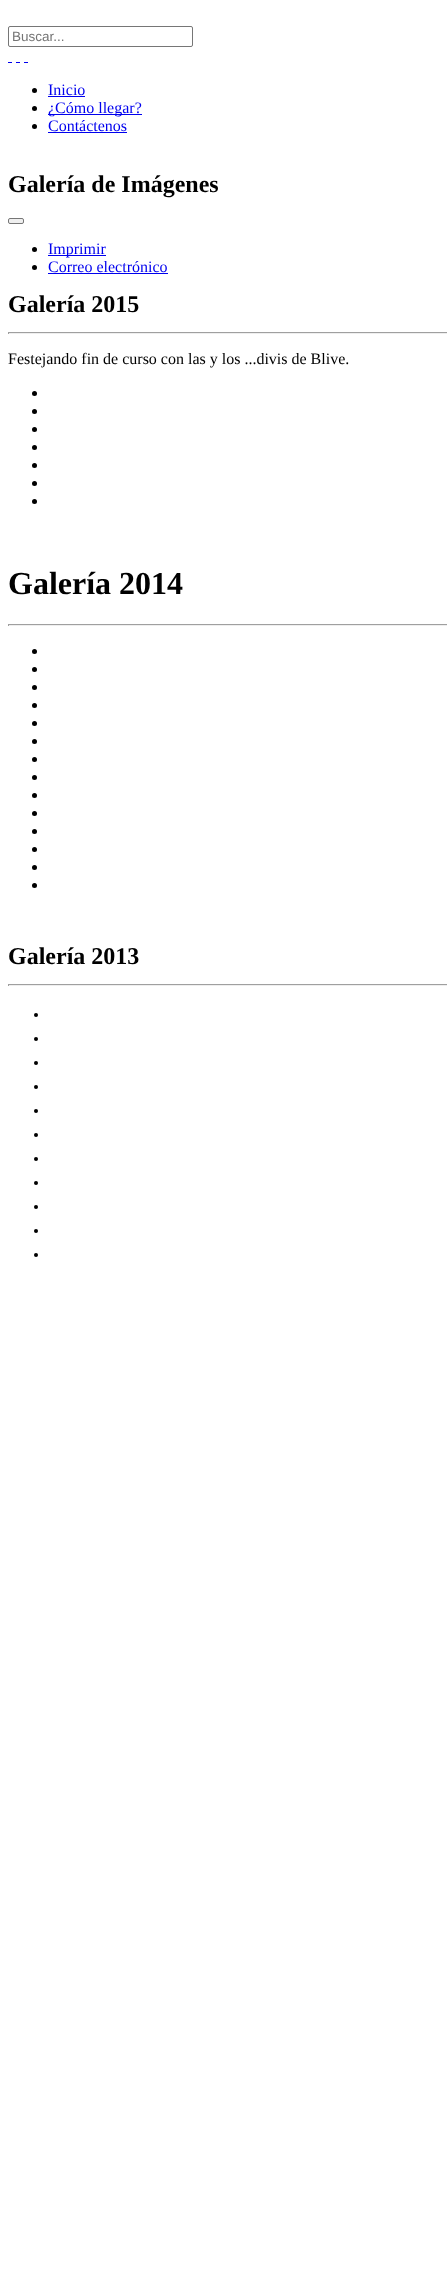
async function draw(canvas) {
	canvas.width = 447;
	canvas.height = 2284;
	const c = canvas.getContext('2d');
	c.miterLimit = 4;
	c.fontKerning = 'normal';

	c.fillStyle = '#fff';
	c.fillRect(0, 0, 447, 2284);
	c.beginPath();
	c.roundRect(8.5, 26.5, 184, 20, 1.5);
	c.strokeStyle = '#767676';
	c.stroke();
	c.font = '13.5px Liberation Sans';
	c.fillStyle = '#757575';
	c.fillText('Buscar...', 12, 41);
	for (const [x, y, w, h, color] of [
		[8, 62, 4, 1, '#00e'],
		[16, 62, 4, 1, '#00e'],
		[24, 62, 4, 1, '#00e'],
	]) {
		c.fillStyle = color;
		c.fillRect(x, y, w, h);
	}
	c.fillStyle = '#000';
	c.beginPath();
	c.arc(34.5, 90.5, 2.5, 0, 2 * Math.PI);
	c.fill();
	c.font = '16px Liberation Serif';
	c.fillStyle = '#00e';
	c.fillText('Inicio', 48, 95);
	c.fillRect(48, 96, 37, 1);
	c.fillStyle = '#000';
	c.beginPath();
	c.arc(34.5, 108.5, 2.5, 0, 2 * Math.PI);
	c.fill();
	c.fillStyle = '#00e';
	c.fillRect(48, 114, 94, 1);
	c.fillText('¿Cómo llegar?', 48, 113);
	c.fillStyle = '#000';
	c.beginPath();
	c.arc(34.5, 126.5, 2.5, 0, 2 * Math.PI);
	c.fill();
	c.fillStyle = '#00e';
	c.fillText('Contáctenos', 48, 131);
	c.fillRect(48, 132, 79, 1);
	c.font = 'bold 24px Liberation Serif';
	c.fillStyle = '#000';
	c.fillText('Galería de Imágenes', 8, 192);
	c.fillStyle = '#efefef';
	c.beginPath();
	c.roundRect(8.5, 218.5, 15, 5, 1.5);
	c.fill();
	c.stroke();
	c.fillStyle = '#000';
	c.beginPath();
	c.arc(34.5, 249.5, 2.5, 0, 2 * Math.PI);
	c.fill();
	c.fillStyle = '#00e';
	c.fillRect(48, 255, 58, 1);
	c.font = '16px Liberation Serif';
	c.fillText('Imprimir', 48, 254);
	c.fillStyle = '#000';
	c.beginPath();
	c.arc(34.5, 267.5, 2.5, 0, 2 * Math.PI);
	c.fill();
	c.fillStyle = '#00e';
	c.fillText('Correo electrónico', 48, 272);
	c.fillRect(48, 273, 120, 1);
	c.font = 'bold 24px Liberation Serif';
	c.fillStyle = '#000';
	c.fillText('Galería 2015', 8, 312);
	for (const [x, y, w, h, color] of [
		[8, 332, 439, 1, '#9f9f9f'],
		[8, 333, 439, 1, '#eee'],
		[8, 332, 1, 2, '#9f9f9f'],
	]) {
		c.fillStyle = color;
		c.fillRect(x, y, w, h);
	}
	c.font = '16px Liberation Serif';
	c.fillStyle = '#000';
	c.fillText('Festejando fin de curso con las y los ...divis de Blive.', 8, 364);
	c.beginPath();
	c.arc(34.5, 393.5, 2.5, 0, 2 * Math.PI);
	c.fill();
	c.beginPath();
	c.arc(34.5, 411.5, 2.5, 0, 2 * Math.PI);
	c.fill();
	c.beginPath();
	c.arc(34.5, 429.5, 2.5, 0, 2 * Math.PI);
	c.fill();
	c.beginPath();
	c.arc(34.5, 447.5, 2.5, 0, 2 * Math.PI);
	c.fill();
	c.beginPath();
	c.arc(34.5, 465.5, 2.5, 0, 2 * Math.PI);
	c.fill();
	c.beginPath();
	c.arc(34.5, 483.5, 2.5, 0, 2 * Math.PI);
	c.fill();
	c.beginPath();
	c.arc(34.5, 501.5, 2.5, 0, 2 * Math.PI);
	c.fill();
	c.font = 'bold 32px Liberation Serif';
	c.fillText('Galería 2014', 8, 594);
	for (const [x, y, w, h, color] of [
		[8, 624, 439, 1, '#9f9f9f'],
		[8, 625, 439, 1, '#eee'],
		[8, 624, 1, 2, '#9f9f9f'],
	]) {
		c.fillStyle = color;
		c.fillRect(x, y, w, h);
	}
	c.fillStyle = '#000';
	c.beginPath();
	c.arc(34.5, 651.5, 2.5, 0, 2 * Math.PI);
	c.fill();
	c.beginPath();
	c.arc(34.5, 669.5, 2.5, 0, 2 * Math.PI);
	c.fill();
	c.beginPath();
	c.arc(34.5, 687.5, 2.5, 0, 2 * Math.PI);
	c.fill();
	c.beginPath();
	c.arc(34.5, 705.5, 2.5, 0, 2 * Math.PI);
	c.fill();
	c.beginPath();
	c.arc(34.5, 723.5, 2.5, 0, 2 * Math.PI);
	c.fill();
	c.beginPath();
	c.arc(34.5, 741.5, 2.5, 0, 2 * Math.PI);
	c.fill();
	c.beginPath();
	c.arc(34.5, 759.5, 2.5, 0, 2 * Math.PI);
	c.fill();
	c.beginPath();
	c.arc(34.5, 777.5, 2.5, 0, 2 * Math.PI);
	c.fill();
	c.beginPath();
	c.arc(34.5, 795.5, 2.5, 0, 2 * Math.PI);
	c.fill();
	c.beginPath();
	c.arc(34.5, 813.5, 2.5, 0, 2 * Math.PI);
	c.fill();
	c.beginPath();
	c.arc(34.5, 831.5, 2.5, 0, 2 * Math.PI);
	c.fill();
	c.beginPath();
	c.arc(34.5, 849.5, 2.5, 0, 2 * Math.PI);
	c.fill();
	c.beginPath();
	c.arc(34.5, 867.5, 2.5, 0, 2 * Math.PI);
	c.fill();
	c.beginPath();
	c.arc(34.5, 885.5, 2.5, 0, 2 * Math.PI);
	c.fill();
	c.font = 'bold 24px Liberation Serif';
	c.fillText('Galería 2013', 8, 964);
	for (const [x, y, w, h, color] of [
		[8, 984, 439, 1, '#9f9f9f'],
		[8, 985, 439, 1, '#eee'],
		[8, 984, 1, 2, '#9f9f9f'],
	]) {
		c.fillStyle = color;
		c.fillRect(x, y, w, h);
	}
	c.fillStyle = '#000';
	c.beginPath();
	c.arc(36, 1015, 2, 0, 2 * Math.PI);
	c.fill();
	c.beginPath();
	c.arc(36, 1039, 2, 0, 2 * Math.PI);
	c.fill();
	c.beginPath();
	c.arc(36, 1063, 2, 0, 2 * Math.PI);
	c.fill();
	c.beginPath();
	c.arc(36, 1087, 2, 0, 2 * Math.PI);
	c.fill();
	c.beginPath();
	c.arc(36, 1111, 2, 0, 2 * Math.PI);
	c.fill();
	c.beginPath();
	c.arc(36, 1135, 2, 0, 2 * Math.PI);
	c.fill();
	c.beginPath();
	c.arc(36, 1159, 2, 0, 2 * Math.PI);
	c.fill();
	c.beginPath();
	c.arc(36, 1183, 2, 0, 2 * Math.PI);
	c.fill();
	c.beginPath();
	c.arc(36, 1207, 2, 0, 2 * Math.PI);
	c.fill();
	c.beginPath();
	c.arc(36, 1231, 2, 0, 2 * Math.PI);
	c.fill();
	c.beginPath();
	c.arc(36, 1255, 2, 0, 2 * Math.PI);
	c.fill();
}

draw(document.querySelector('canvas'));
